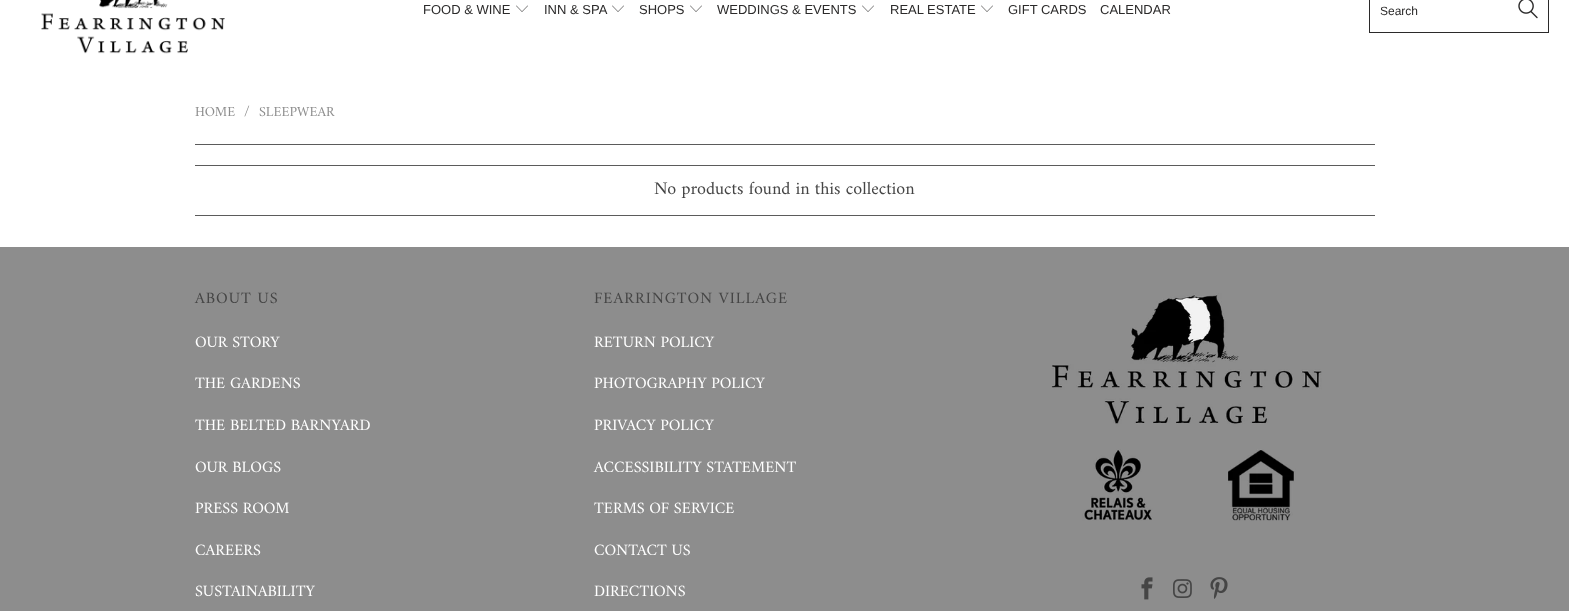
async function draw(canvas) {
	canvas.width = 1569;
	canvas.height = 611;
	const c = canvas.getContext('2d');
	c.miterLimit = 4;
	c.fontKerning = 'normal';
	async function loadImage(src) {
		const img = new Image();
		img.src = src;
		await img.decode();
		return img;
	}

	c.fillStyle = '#fff';
	c.fillRect(0, 0, 1569, 611);
	c.drawImage(await loadImage('img1.png'), 41, 0, 184, 54);
	c.font = '13px Liberation Sans';
	c.fillStyle = '#2b2a2a';
	c.fillText('FOOD & WINE', 423, 14);
	c.drawImage(await loadImage('img2.png'), 516, 5, 12, 7);
	c.fillText('INN & SPA', 544, 14);
	c.drawImage(await loadImage('img2.png'), 612, 5, 12, 7);
	c.fillText('SHOPS', 639, 14);
	c.drawImage(await loadImage('img2.png'), 690, 5, 12, 7);
	c.fillText('WEDDINGS & EVENTS', 717, 14);
	c.drawImage(await loadImage('img2.png'), 862, 5, 12, 7);
	c.fillText('REAL ESTATE', 890, 14);
	c.drawImage(await loadImage('img2.png'), 981, 5, 12, 7);
	c.fillText('GIFT CARDS', 1008, 14);
	c.fillText('CALENDAR', 1100, 14);
	c.strokeStyle = '#2b2a2a';
	c.strokeRect(1369.5, -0.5, 179, 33);
	c.font = '12px Liberation Sans';
	c.fillText('Search', 1380, 15);
	c.drawImage(await loadImage('img3.png'), 1518, 0, 20, 19);
	c.font = '14px Amiri';
	c.fillStyle = '#8d8d8d';
	for (const [text, x, y] of [
		['HOME', 195, 116],
		['/', 244, 116],
		['SLEEPWEAR', 259, 116],
	]) {
		c.fillText(text, x, y);
	}
	for (const [x, y, w, h, color] of [
		[195, 144, 1180, 1, '#5b5b5b'],
		[195, 165, 1180, 1, '#5b5b5b'],
		[195, 215, 1180, 1, '#5b5b5b'],
	]) {
		c.fillStyle = color;
		c.fillRect(x, y, w, h);
	}
	c.font = '18px Amiri';
	c.fillStyle = '#454545';
	c.fillText('No products found in this collection', 654, 194);
	c.fillStyle = '#8d8d8d';
	c.fillRect(0, 247, 1569, 364);
	c.letterSpacing = '1px';
	c.font = '16px Amiri';
	c.fillStyle = '#454545';
	c.fillText('ABOUT US', 195, 303);
	c.letterSpacing = '0px';
	c.fillStyle = '#fff';
	for (const [text, x, y] of [
		['OUR STORY', 195, 347],
		['THE GARDENS', 195, 388],
		['THE BELTED BARNYARD', 195, 430],
		['OUR BLOGS', 195, 472],
		['PRESS ROOM', 195, 513],
		['CAREERS', 195, 555],
		['SUSTAINABILITY', 195, 596],
	]) {
		c.fillText(text, x, y);
	}
	c.letterSpacing = '1px';
	c.fillStyle = '#454545';
	c.fillText('FEARRINGTON VILLAGE', 594, 303);
	c.letterSpacing = '0px';
	c.fillStyle = '#fff';
	for (const [text, x, y] of [
		['RETURN POLICY', 594, 347],
		['PHOTOGRAPHY POLICY', 594, 388],
		['PRIVACY POLICY', 594, 430],
		['ACCESSIBILITY STATEMENT', 594, 472],
		['TERMS OF SERVICE', 594, 513],
		['CONTACT US', 594, 555],
		['DIRECTIONS', 594, 596],
	]) {
		c.fillText(text, x, y);
	}
	c.drawImage(await loadImage('img4.png'), 1051, 293, 271, 228);
	c.drawImage(await loadImage('img5.png'), 1141, 577, 12, 23);
	c.drawImage(await loadImage('img6.png'), 1173, 579, 19, 19);
	c.drawImage(await loadImage('img7.png'), 1210, 577, 18, 22);
}

draw(document.querySelector('canvas'));
